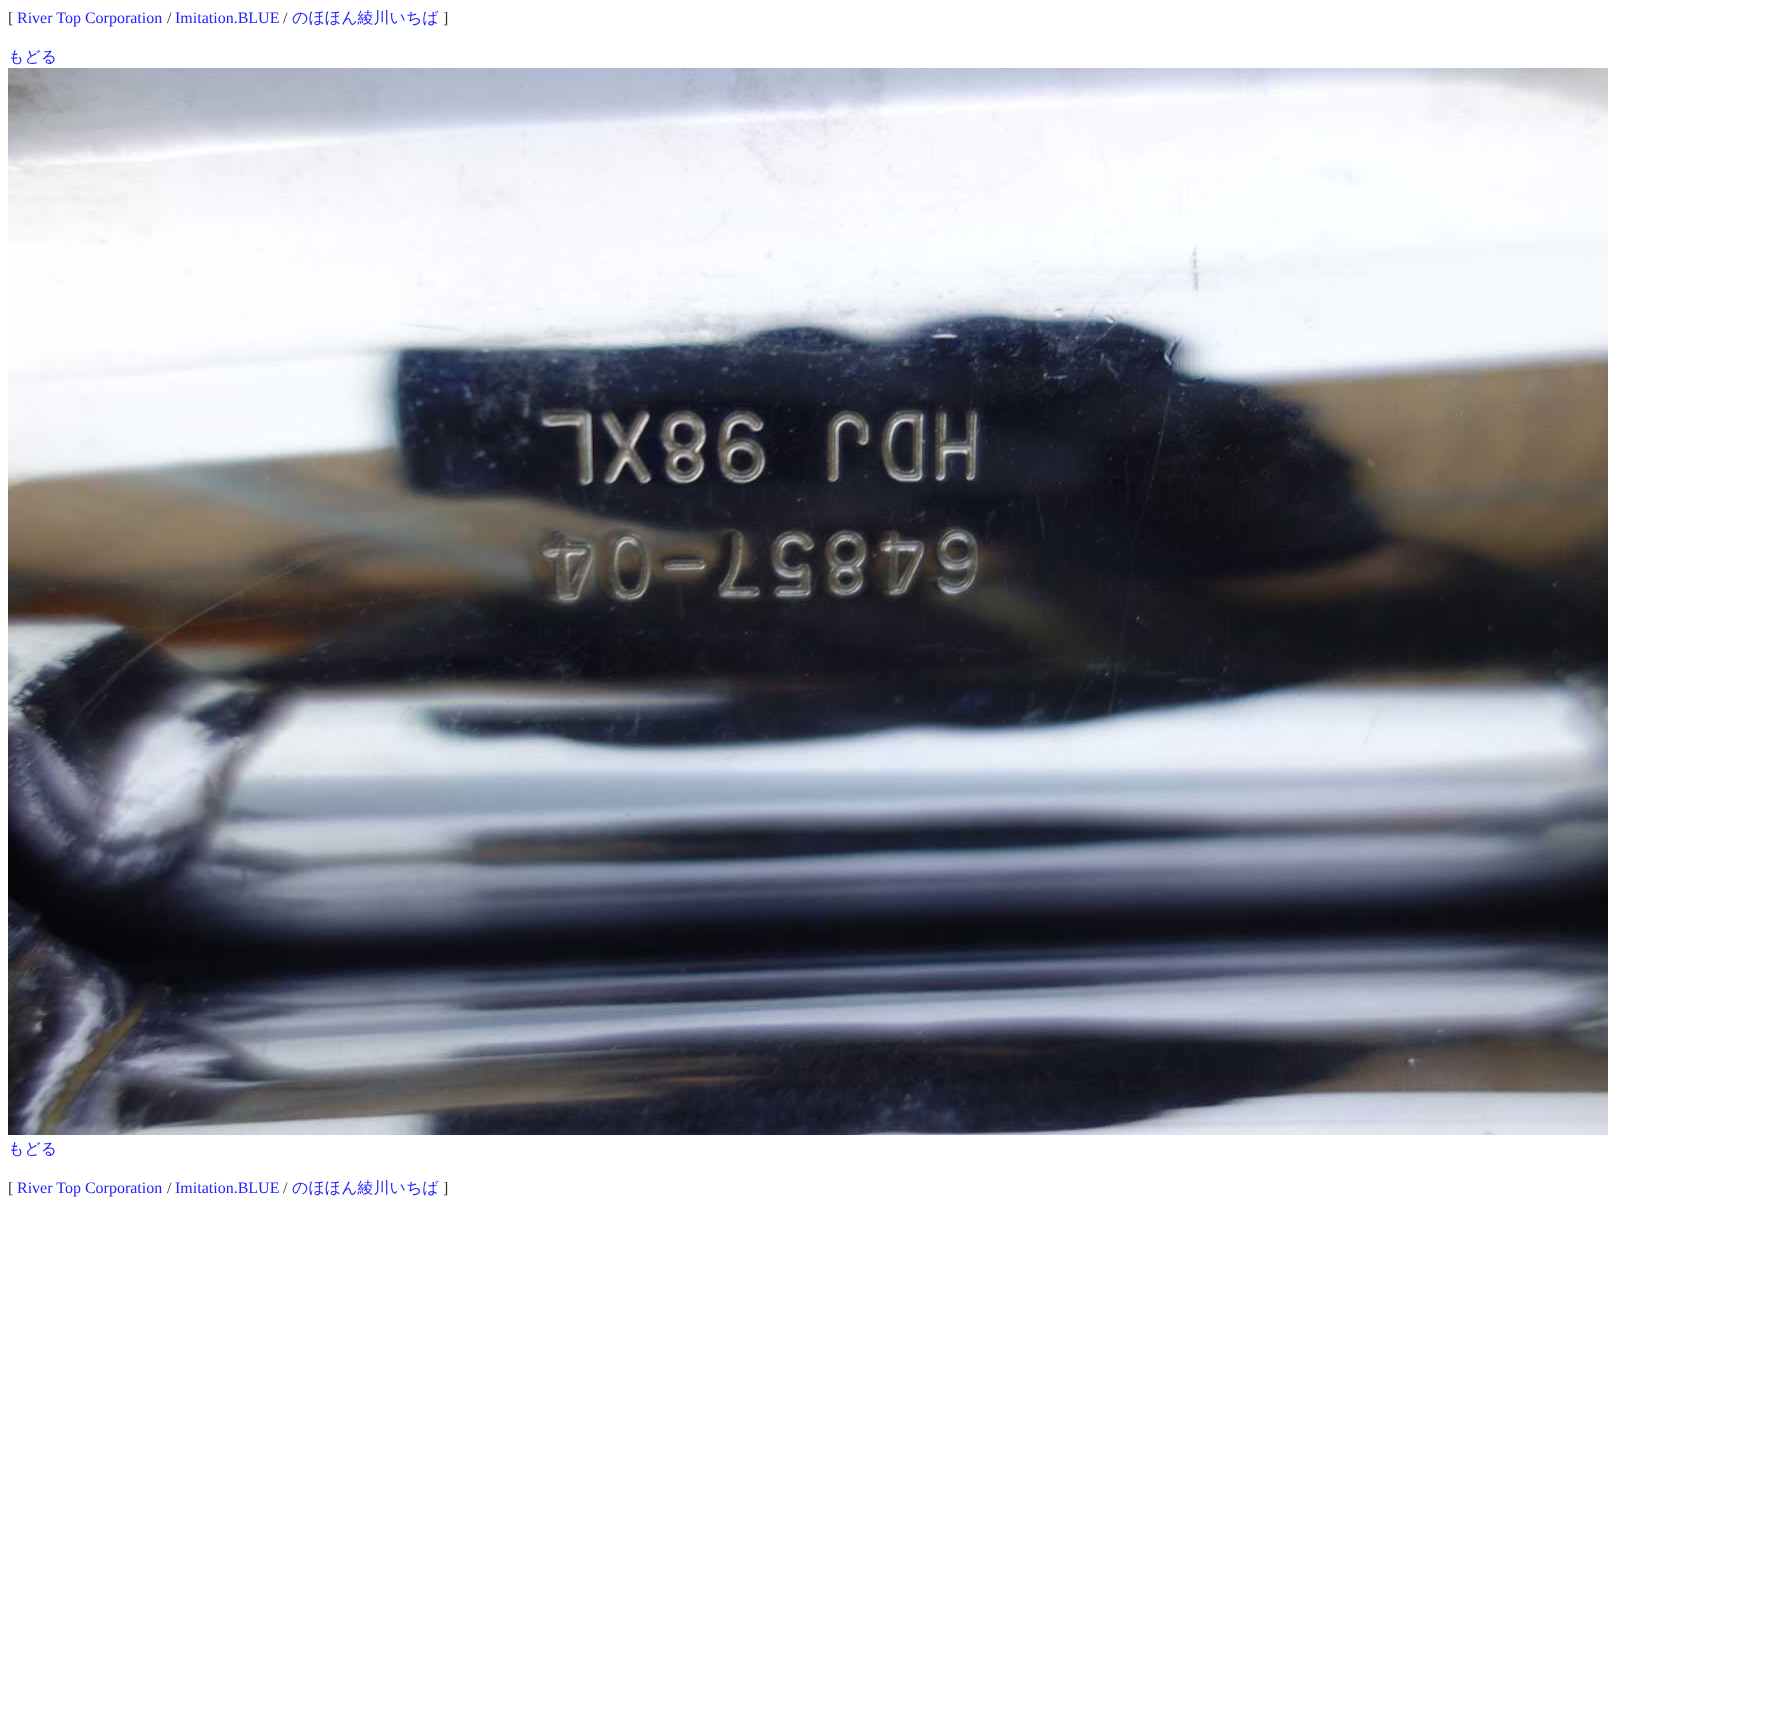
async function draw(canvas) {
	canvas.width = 1789;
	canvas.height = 1724;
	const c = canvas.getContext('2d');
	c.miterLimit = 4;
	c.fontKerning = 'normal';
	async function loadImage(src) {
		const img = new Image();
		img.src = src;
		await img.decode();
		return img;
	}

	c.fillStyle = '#fff';
	c.fillRect(0, 0, 1789, 1724);
	c.font = '16px Liberation Serif';
	c.fillStyle = '#333';
	c.fillText('[', 8, 23);
	c.fillStyle = '#22f';
	c.fillText('River Top Corporation', 17, 23);
	c.fillStyle = '#333';
	c.fillText('/', 167, 23);
	c.fillStyle = '#22f';
	c.fillText('Imitation.BLUE', 175, 23);
	c.fillStyle = '#333';
	c.fillText('/', 283, 23);
	c.font = '500 16px WenQuanYi Zen Hei';
	c.fillStyle = '#22f';
	c.fillText('のほほん綾川いちば', 292, 23);
	c.font = '16px Liberation Serif';
	c.fillStyle = '#333';
	c.fillText(']', 443, 23);
	c.font = '500 16px WenQuanYi Zen Hei';
	c.fillStyle = '#22f';
	c.fillText('もどる', 8, 62);
	c.drawImage(await loadImage('img1.png'), 8, 68, 1600, 1067);
	c.fillText('もどる', 8, 1154);
	c.font = '16px Liberation Serif';
	c.fillStyle = '#333';
	c.fillText('[', 8, 1193);
	c.fillStyle = '#22f';
	c.fillText('River Top Corporation', 17, 1193);
	c.fillStyle = '#333';
	c.fillText('/', 167, 1193);
	c.fillStyle = '#22f';
	c.fillText('Imitation.BLUE', 175, 1193);
	c.fillStyle = '#333';
	c.fillText('/', 283, 1193);
	c.font = '500 16px WenQuanYi Zen Hei';
	c.fillStyle = '#22f';
	c.fillText('のほほん綾川いちば', 292, 1193);
	c.font = '16px Liberation Serif';
	c.fillStyle = '#333';
	c.fillText(']', 443, 1193);
}

draw(document.querySelector('canvas'));
